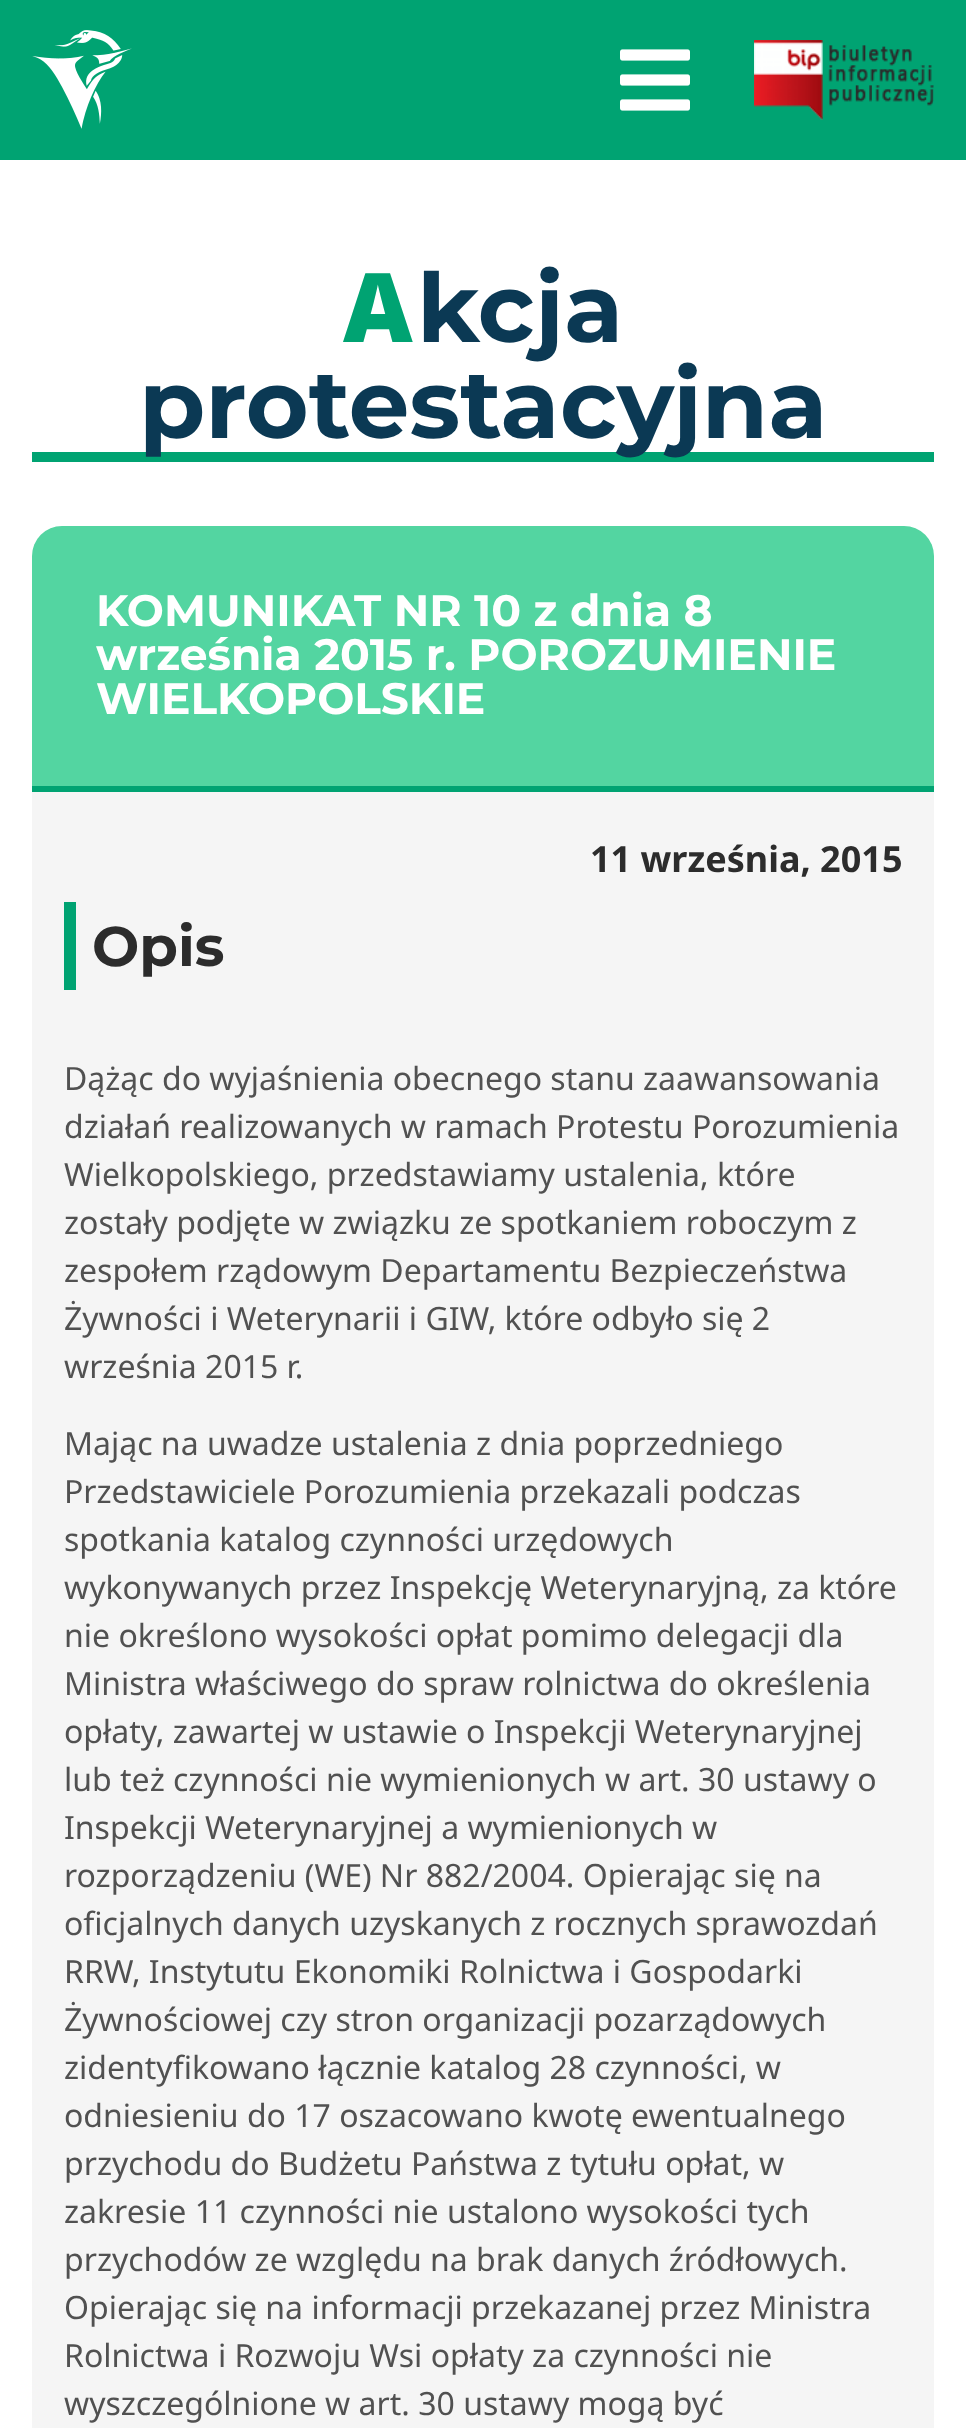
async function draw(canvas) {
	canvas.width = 966;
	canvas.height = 2428;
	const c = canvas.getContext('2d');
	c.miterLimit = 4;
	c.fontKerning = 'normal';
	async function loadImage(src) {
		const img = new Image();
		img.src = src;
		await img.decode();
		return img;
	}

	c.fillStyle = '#fff';
	c.fillRect(0, 0, 966, 2428);
	c.fillStyle = '#00a372';
	c.fillRect(0, 0, 966, 160);
	c.drawImage(await loadImage('img1.png'), 32, 30, 100, 99);
	c.drawImage(await loadImage('img2.png'), 620, 49, 70, 62);
	c.drawImage(await loadImage('img3.png'), 754, 40, 180, 80);
	c.fillRect(32, 452, 902, 10);
	c.font = 'bold 96px Montserrat';
	c.fillStyle = '#0b3954';
	c.fillText('kcja', 417, 342);
	c.fillText('protestacyjna', 139, 438);
	c.font = '900 96px Noto Sans';
	c.fillStyle = '#00a372';
	c.fillText('A', 343, 342);
	c.fillStyle = '#53d5a1';
	c.beginPath();
	c.roundRect(32, 526, 902, 260, [30, 30, 0, 0]);
	c.fill();
	c.fillStyle = '#00a372';
	c.fillRect(32, 786, 902, 6);
	c.font = 'bold 44px Montserrat';
	c.fillStyle = '#fff';
	for (const [text, x, y] of [
		['KOMUNIKAT NR 10 z dnia 8', 96, 626],
		['września 2015 r. POROZUMIENIE', 96, 670],
		['WIELKOPOLSKIE', 96, 714],
	]) {
		c.fillText(text, x, y);
	}
	c.fillStyle = '#f5f5f5';
	c.fillRect(32, 792, 902, 1636);
	c.font = 'bold 36px Noto Sans';
	c.fillStyle = '#2c2c2c';
	c.fillText('11 września, 2015', 590, 872);
	c.fillStyle = '#00a372';
	c.fillRect(64, 902, 12, 88);
	c.font = 'bold 56px Montserrat';
	c.fillStyle = '#2c2c2c';
	c.fillText('Opis', 92, 966);
	c.font = '32px Noto Sans';
	c.fillStyle = '#515151';
	for (const [text, x, y] of [
		['Dążąc do wyjaśnienia obecnego stanu zaawansowania', 64, 1090],
		['działań realizowanych w ramach Protestu Porozumienia', 64, 1138],
		['Wielkopolskiego, przedstawiamy ustalenia, które', 64, 1186],
		['zostały podjęte w związku ze spotkaniem roboczym z', 64, 1234],
		['zespołem rządowym Departamentu Bezpieczeństwa', 64, 1282],
		['Żywności i Weterynarii i GIW, które odbyło się 2', 64, 1330],
		['września 2015 r.', 64, 1378],
		['Mając na uwadze ustalenia z dnia poprzedniego', 64, 1455],
		['Przedstawiciele Porozumienia przekazali podczas', 64, 1503],
		['spotkania katalog czynności urzędowych', 64, 1551],
		['wykonywanych przez Inspekcję Weterynaryjną, za które', 64, 1599],
		['nie określono wysokości opłat pomimo delegacji dla', 64, 1647],
		['Ministra właściwego do spraw rolnictwa do określenia', 64, 1695],
		['opłaty, zawartej w ustawie o Inspekcji Weterynaryjnej', 64, 1743],
		['lub też czynności nie wymienionych w art. 30 ustawy o', 64, 1791],
		['Inspekcji Weterynaryjnej a wymienionych w', 64, 1839],
		['rozporządzeniu (WE) Nr 882/2004. Opierając się na', 64, 1887],
		['oficjalnych danych uzyskanych z rocznych sprawozdań', 64, 1935],
		['RRW, Instytutu Ekonomiki Rolnictwa i Gospodarki', 64, 1983],
		['Żywnościowej czy stron organizacji pozarządowych', 64, 2031],
		['zidentyfikowano łącznie katalog 28 czynności, w', 64, 2079],
		['odniesieniu do 17 oszacowano kwotę ewentualnego', 64, 2127],
		['przychodu do Budżetu Państwa z tytułu opłat, w', 64, 2175],
		['zakresie 11 czynności nie ustalono wysokości tych', 64, 2223],
		['przychodów ze względu na brak danych źródłowych.', 64, 2271],
		['Opierając się na informacji przekazanej przez Ministra', 64, 2319],
		['Rolnictwa i Rozwoju Wsi opłaty za czynności nie', 64, 2367],
		['wyszczególnione w art. 30 ustawy mogą być', 64, 2415],
	]) {
		c.fillText(text, x, y);
	}
}

draw(document.querySelector('canvas'));
